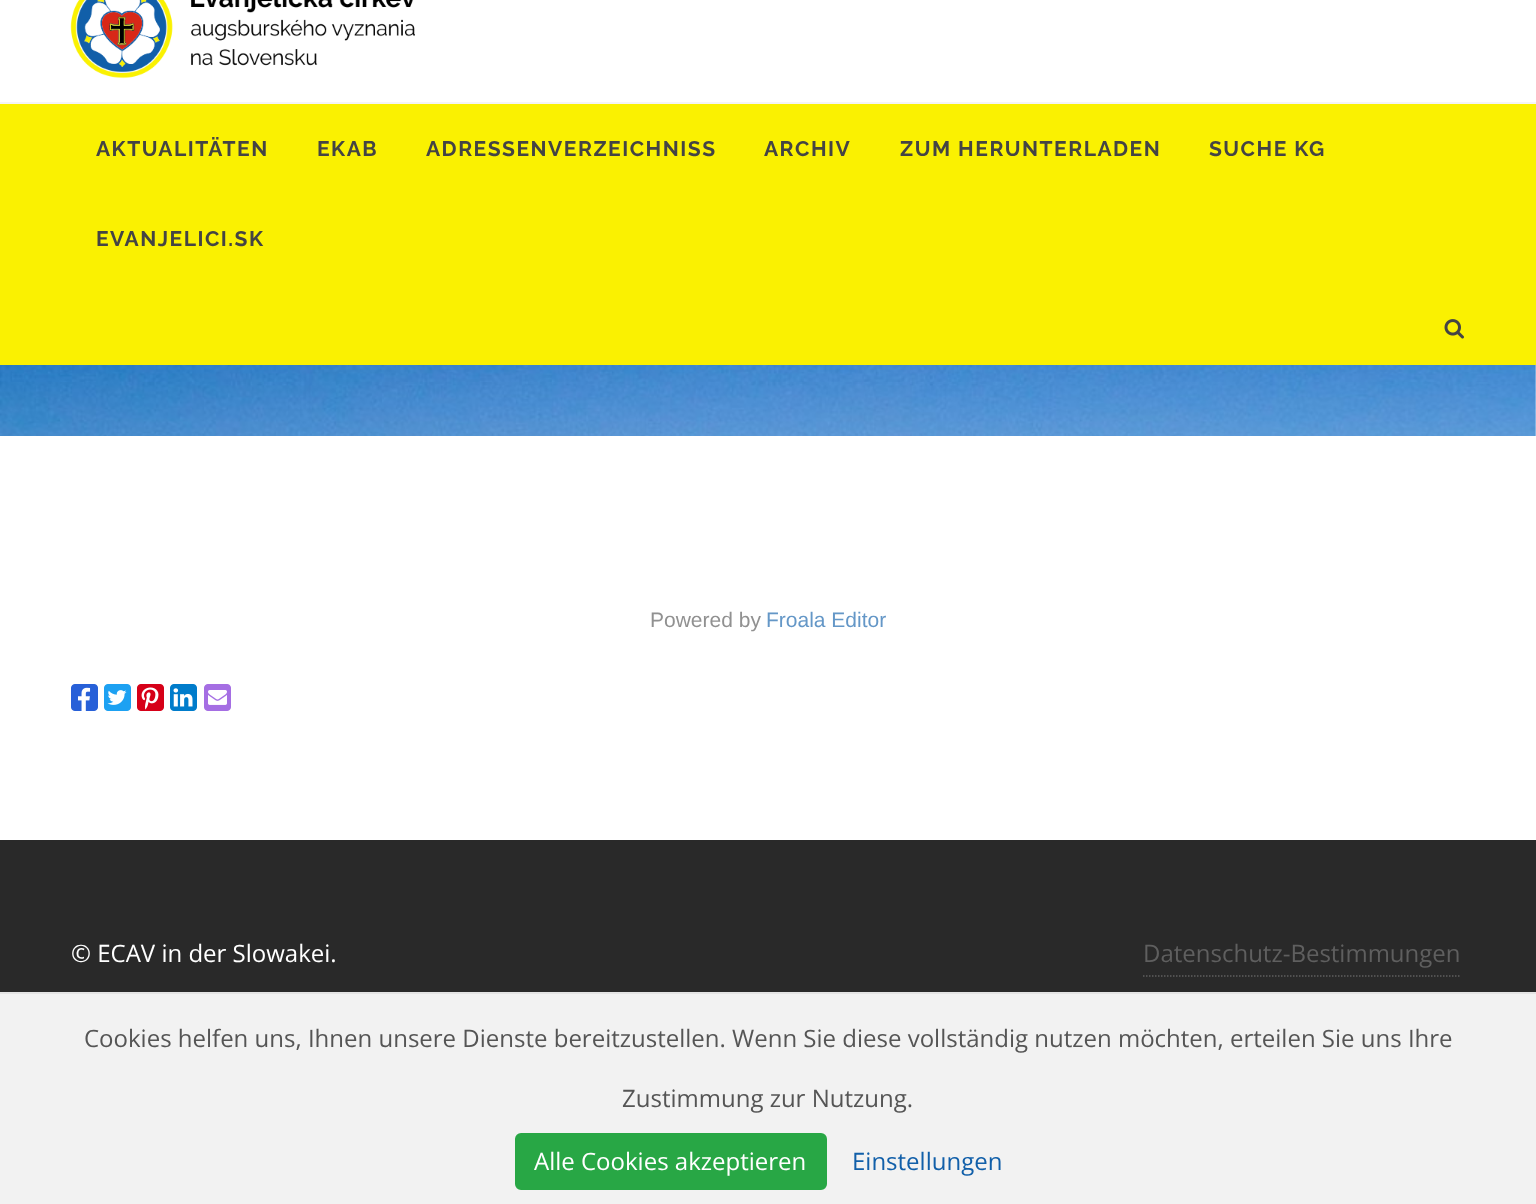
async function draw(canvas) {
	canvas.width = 1536;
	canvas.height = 1204;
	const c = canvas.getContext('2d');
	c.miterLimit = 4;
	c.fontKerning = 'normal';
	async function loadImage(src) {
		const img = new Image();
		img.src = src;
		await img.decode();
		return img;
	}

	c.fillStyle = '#fff';
	c.fillRect(0, 0, 1536, 1204);
	c.drawImage(await loadImage('img1.png'), 70, 0, 345, 79);
	c.fillStyle = '#faf101';
	c.fillRect(0, 104, 1536, 261);
	c.fillStyle = '#f5f5f5';
	c.fillRect(0, 102, 1536, 2);
	c.letterSpacing = '1.5px';
	c.font = 'bold 21px Raleway';
	c.fillStyle = '#444';
	for (const [text, x, y] of [
		['AKTUALITÄTEN', 96, 156],
		['EKAB', 317, 156],
		['ADRESSENVERZEICHNISS', 426, 156],
		['ARCHIV', 764, 156],
		['ZUM HERUNTERLADEN', 900, 156],
		['SUCHE KG', 1209, 156],
		['EVANJELICI.SK', 96, 246],
	]) {
		c.fillText(text, x, y);
	}
	c.drawImage(await loadImage('img2.png'), 1444, 319, 20, 20);
	c.drawImage(await loadImage('img3.png'), 0, 365, 1536, 71);
	c.letterSpacing = '0px';
	c.font = '21px Liberation Sans';
	c.fillStyle = '#919191';
	c.fillText('Powered by', 650, 627);
	c.fillStyle = '#6497c7';
	c.fillText('Froala Editor', 766, 627);
	c.drawImage(await loadImage('img4.png'), 71, 684, 27, 27);
	c.drawImage(await loadImage('img5.png'), 104, 684, 27, 27);
	c.drawImage(await loadImage('img6.png'), 137, 684, 27, 27);
	c.drawImage(await loadImage('img7.png'), 170, 684, 27, 27);
	c.drawImage(await loadImage('img8.png'), 204, 684, 27, 27);
	c.fillStyle = '#292929';
	c.fillRect(0, 840, 1536, 152);
	c.font = '24px Open Sans';
	c.fillStyle = '#fff';
	c.fillText('© ECAV in der Slowakei.', 71, 962);
	c.beginPath();
	c.moveTo(1143, 976);
	c.lineTo(1461, 976);
	c.strokeStyle = '#5f5f5f';
	c.lineWidth = 1.5;
	c.setLineDash([1.5, 1.5]);
	c.stroke();
	c.fillStyle = '#5f5f5f';
	c.fillText('Datenschutz-Bestimmungen', 1143, 962);
	c.fillStyle = '#f2f2f2';
	c.fillRect(0, 994, 1536, 210);
	c.fillStyle = '#e4e4e4';
	c.fillRect(0, 992, 1536, 2);
	c.fillStyle = '#555';
	c.fillText('Cookies helfen uns, Ihnen unsere Dienste bereitzustellen. Wenn Sie diese vollständig nutzen möchten, erteilen Sie uns Ihre', 84, 1047);
	c.fillText('Zustimmung zur Nutzung.', 622, 1107);
	c.fillStyle = '#28a745';
	c.beginPath();
	c.roundRect(516, 1134, 310, 55, 5);
	c.fill();
	c.strokeStyle = '#28a745';
	c.lineWidth = 2;
	c.setLineDash([]);
	c.stroke();
	c.fillStyle = '#fff';
	c.fillText('Alle Cookies akzeptieren', 534, 1170);
	c.fillStyle = '#115fa9';
	c.fillText('Einstellungen', 852, 1170);
}

draw(document.querySelector('canvas'));
